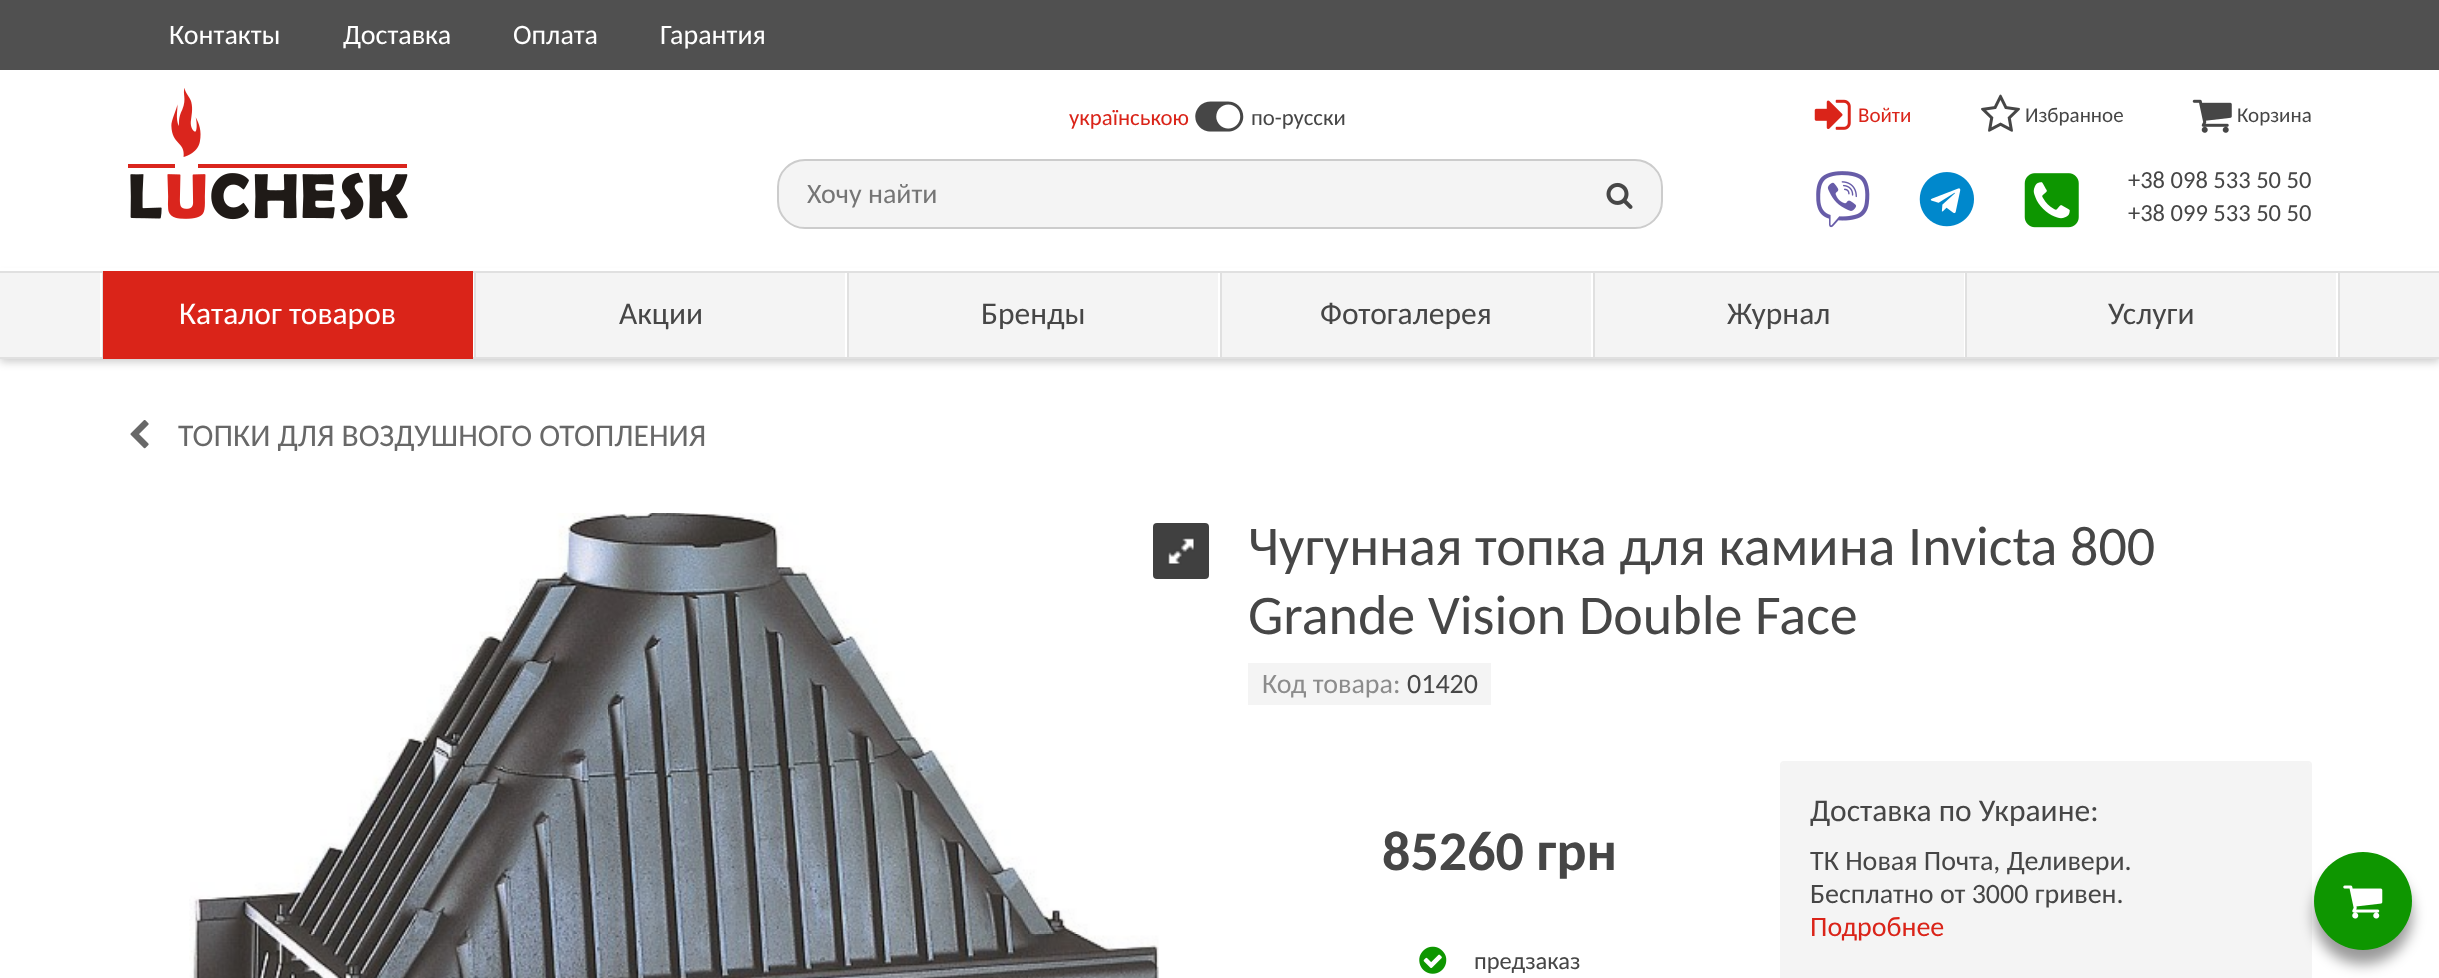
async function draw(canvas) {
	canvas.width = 2439;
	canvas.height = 978;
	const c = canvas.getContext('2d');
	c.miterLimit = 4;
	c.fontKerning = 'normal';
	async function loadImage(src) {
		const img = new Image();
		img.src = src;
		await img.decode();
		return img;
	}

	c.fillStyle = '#fff';
	c.fillRect(0, 0, 2439, 978);
	c.fillStyle = '#505050';
	c.fillRect(0, 0, 2439, 70);
	c.font = '28px Carlito';
	c.fillStyle = '#fff';
	for (const [text, x, y] of [
		['Контакты', 169, 44],
		['Доставка', 343, 44],
		['Оплата', 513, 44],
		['Гарантия', 660, 44],
	]) {
		c.fillText(text, x, y);
	}
	c.fillStyle = '#00000033';
	c.filter = 'blur(4.5px)';
	c.beginPath();
	c.rect(0, 275, 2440, 87);
	c.fill();
	c.filter = 'none';
	c.fillStyle = '#fff';
	c.fillRect(0, 268, 2439, 3);
	c.drawImage(await loadImage('img1.png'), 128, 88, 280, 132);
	c.font = '22.75px Carlito';
	c.fillStyle = '#da2419';
	c.fillText('українською', 1069, 125);
	c.drawImage(await loadImage('img2.png'), 1195, 101, 49, 31);
	c.fillStyle = '#464646';
	c.fillText('по-русски', 1251, 125);
	c.fillStyle = '#f4f4f4';
	c.beginPath();
	c.roundRect(778, 160, 884, 68, 27);
	c.fill();
	c.strokeStyle = '#ccc';
	c.lineWidth = 2;
	c.stroke();
	c.font = '28px Carlito';
	c.fillStyle = '#757575';
	c.fillText('Хочу найти', 807, 203);
	c.drawImage(await loadImage('img3.png'), 1606, 182, 27, 27);
	c.drawImage(await loadImage('img4.png'), 1814, 99, 37, 31);
	c.font = '21px Carlito';
	c.fillStyle = '#da2419';
	c.fillText('Войти', 1858, 122);
	c.drawImage(await loadImage('img5.png'), 1981, 94, 39, 38);
	c.fillStyle = '#464646';
	c.fillText('Избранное', 2025, 122);
	c.drawImage(await loadImage('img6.png'), 2192, 99, 40, 34);
	c.fillText('Корзина', 2237, 122);
	c.drawImage(await loadImage('img7.png'), 1816, 171, 54, 57);
	c.drawImage(await loadImage('img8.png'), 1919, 172, 55, 55);
	c.drawImage(await loadImage('img9.png'), 2024, 173, 55, 55);
	c.font = '24.5px Carlito';
	c.fillText('+38 098 533 50 50', 2128, 188);
	c.fillText('+38 099 533 50 50', 2128, 221);
	for (const [x, y, w, h, color] of [
		[0, 273, 2439, 84, '#f4f4f4'],
		[0, 271, 2439, 2, '#e0e0e0'],
		[0, 357, 2439, 2, '#e0e0e0'],
		[2338, 273, 2, 84, '#e0e0e0'],
		[100, 273, 2, 84, '#fff'],
		[473, 273, 1, 84, '#fff'],
		[102, 273, 1, 84, '#e0e0e0'],
		[103, 271, 370, 88, '#da2419'],
	]) {
		c.fillStyle = color;
		c.fillRect(x, y, w, h);
	}
	c.font = '31.5px Carlito';
	c.fillStyle = '#fff';
	c.fillText('Каталог товаров', 179, 324);
	c.fillRect(845, 273, 2, 84);
	c.fillStyle = '#e0e0e0';
	c.fillRect(474, 273, 2, 84);
	c.fillStyle = '#464646';
	c.fillText('Акции', 619, 324);
	c.fillStyle = '#fff';
	c.fillRect(1218, 273, 2, 84);
	c.fillStyle = '#e0e0e0';
	c.fillRect(847, 273, 2, 84);
	c.fillStyle = '#464646';
	c.fillText('Бренды', 981, 324);
	c.fillStyle = '#fff';
	c.fillRect(1591, 273, 2, 84);
	c.fillStyle = '#e0e0e0';
	c.fillRect(1220, 273, 2, 84);
	c.fillStyle = '#464646';
	c.fillText('Фотогалерея', 1320, 324);
	c.fillStyle = '#fff';
	c.fillRect(1964, 273, 1, 84);
	c.fillStyle = '#e0e0e0';
	c.fillRect(1593, 273, 2, 84);
	c.fillStyle = '#464646';
	c.fillText('Журнал', 1727, 324);
	c.fillStyle = '#fff';
	c.fillRect(2336, 273, 2, 84);
	c.fillStyle = '#e0e0e0';
	c.fillRect(1965, 273, 2, 84);
	c.fillStyle = '#464646';
	c.fillText('Услуги', 2108, 324);
	c.drawImage(await loadImage('img10.png'), 130, 420, 19, 29);
	c.fillStyle = '#686868';
	c.fillText('ТОПКИ ДЛЯ ВОЗДУШНОГО ОТОПЛЕНИЯ', 178, 446);
	c.drawImage(await loadImage('img11.png'), 189, 513, 970, 465);
	c.fillStyle = '#404040';
	c.beginPath();
	c.roundRect(1153, 523, 56, 56, 4);
	c.fill();
	c.drawImage(await loadImage('img12.png'), 1167, 537, 28, 28);
	c.font = '56px Carlito';
	c.fillStyle = '#464646';
	c.fillText('Чугунная топка для камина Invicta 800', 1248, 565);
	c.fillText('Grande Vision Double Face', 1248, 634);
	c.fillStyle = '#f4f4f4';
	c.fillRect(1248, 663, 243, 42);
	c.font = '28px Carlito';
	c.fillStyle = '#8c8c8c';
	c.fillText('Код товара:', 1262, 693);
	c.fillStyle = '#464646';
	c.fillText('01420', 1407, 693);
	c.font = 'bold 56px Carlito';
	c.fillText('85260 грн', 1382, 870);
	c.fillStyle = '#f4f4f4';
	c.beginPath();
	c.roundRect(1782, 763, 528, 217, 2);
	c.fill();
	c.beginPath();
	c.roundRect(1781, 762, 530, 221, 3);
	c.strokeStyle = '#f4f4f4';
	c.stroke();
	c.fillStyle = '#00000066';
	c.filter = 'blur(7px)';
	c.beginPath();
	c.roundRect(2314, 866, 98, 98, 49);
	c.fill();
	c.filter = 'none';
	c.fillStyle = '#0e9600';
	c.beginPath();
	c.arc(2363, 901, 49, 0, 2 * Math.PI);
	c.fill();
	c.drawImage(await loadImage('img13.png'), 2343, 885, 40, 34);
	c.drawImage(await loadImage('img14.png'), 1419, 946, 28, 28);
	c.font = '24.5px Carlito';
	c.fillStyle = '#464646';
	c.fillText('предзаказ', 1474, 969);
	c.font = '31.5px Carlito';
	c.fillText('Доставка по Украине:', 1810, 821);
	c.font = '28px Carlito';
	c.fillText('ТК Новая Почта, Деливери.', 1810, 870);
	c.fillText('Бесплатно от 3000 гривен.', 1810, 903);
	c.fillStyle = '#da2419';
	c.fillText('Подробнее', 1810, 936);
}

draw(document.querySelector('canvas'));
